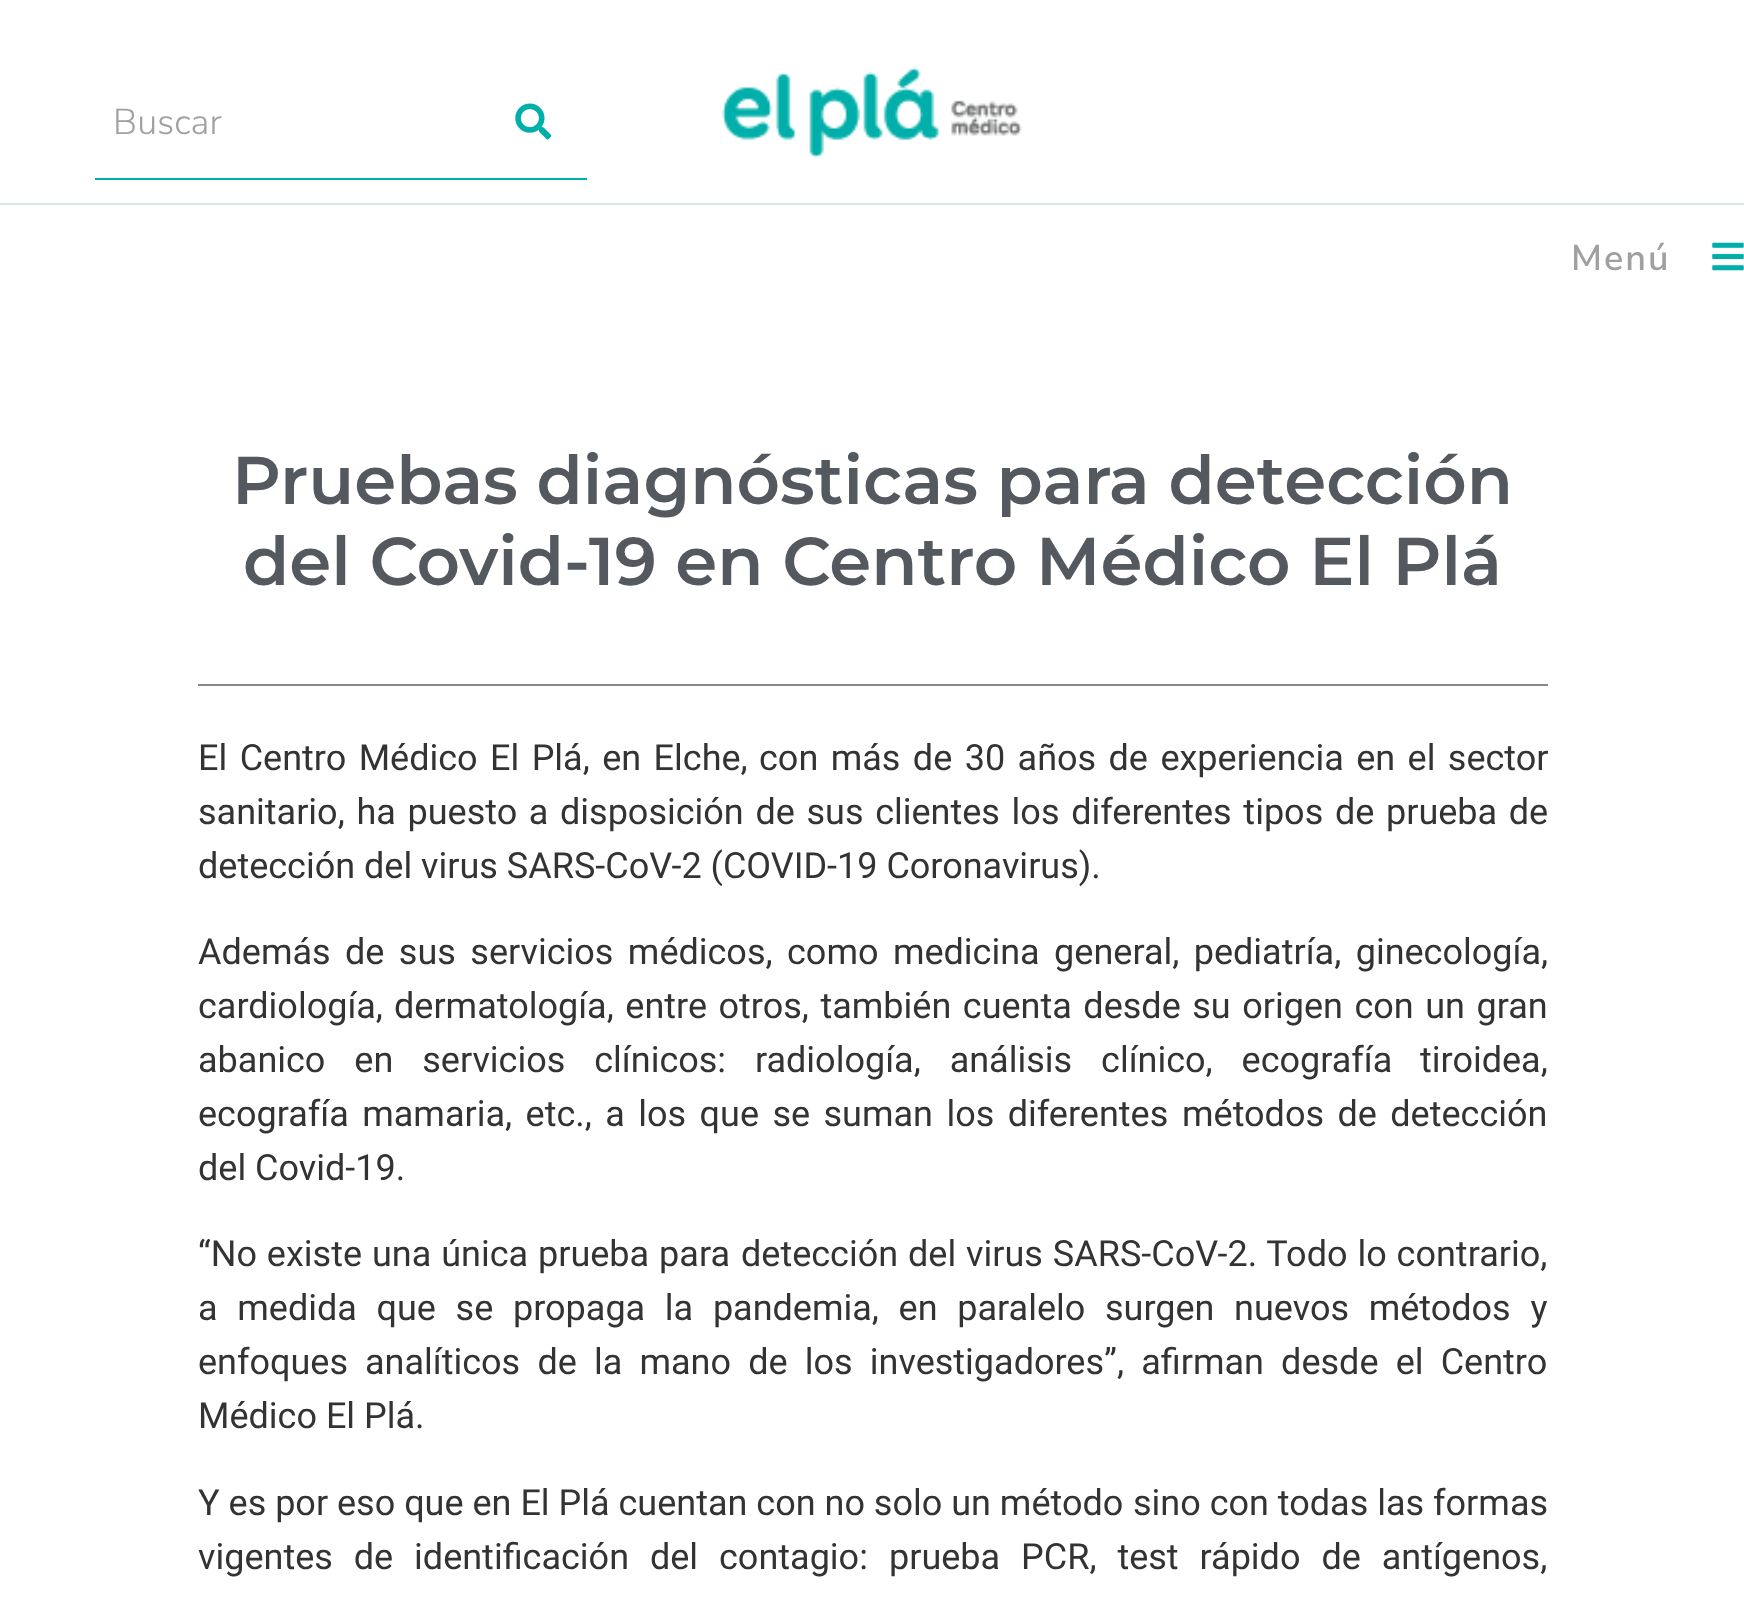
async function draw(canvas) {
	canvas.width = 1744;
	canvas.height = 1599;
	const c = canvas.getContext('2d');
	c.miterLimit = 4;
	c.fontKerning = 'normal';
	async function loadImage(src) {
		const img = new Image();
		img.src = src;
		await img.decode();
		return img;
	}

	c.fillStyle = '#fff';
	c.fillRect(0, 0, 1744, 1599);
	c.fillStyle = '#d4eae9';
	c.fillRect(0, 203, 1744, 2);
	c.fillStyle = '#00afaa';
	c.fillRect(95, 178, 492, 2);
	c.font = '300 36px Nunito Sans';
	c.fillStyle = '#a0a0a0';
	c.fillText('Buscar', 113, 134);
	c.drawImage(await loadImage('img1.png'), 515, 103, 37, 37);
	c.drawImage(await loadImage('img2.png'), 721, 67, 301, 91);
	c.letterSpacing = '2px';
	c.font = '600 36px Nunito Sans';
	c.fillText('Menú', 1571, 270);
	c.drawImage(await loadImage('img3.png'), 1712, 242, 32, 29);
	c.fillStyle = '#888';
	c.fillRect(198, 684, 1350, 2);
	c.letterSpacing = '0px';
	c.font = '600 67.5px Montserrat';
	c.fillStyle = '#54595f';
	c.fillText('Pruebas diagnósticas para detección', 232, 504);
	c.fillText('del Covid-19 en Centro Médico El Plá', 243, 585);
	c.wordSpacing = '3.5px';
	c.font = '36px Roboto';
	c.fillStyle = '#333';
	c.fillText('El Centro Médico El Plá, en Elche,', 198, 770);
	c.fillText('con más de 30 años de experiencia en el sector', 759, 770);
	c.wordSpacing = '2.75px';
	c.fillText('sanitario, ha puesto a', 198, 824);
	c.fillText('disposición de sus clientes los diferentes tipos de prueba de', 560, 824);
	c.wordSpacing = '0px';
	c.fillText('detección del virus SARS-CoV-2 (COVID-19 Coronavirus).', 198, 878);
	c.wordSpacing = '5.5px';
	c.fillText('Además de sus servicios médicos,', 198, 964);
	c.fillText('como medicina general, pediatría, ginecología,', 787, 964);
	c.wordSpacing = '0px';
	c.fillText('cardiología,', 198, 1018);
	c.wordSpacing = '2.6px';
	c.fillText('dermatología, entre otros, también cuenta desde su origen con un gran', 394, 1018);
	c.wordSpacing = '20px';
	c.fillText('abanico en servicios clínicos: radiología, análisis clínico, ecografía', 198, 1072);
	c.wordSpacing = '0px';
	c.fillText('tiroidea,', 1420, 1072);
	c.wordSpacing = '4.5px';
	c.fillText('ecografía mamaria, etc., a los que se suman los diferentes', 198, 1126);
	c.fillText('métodos de detección', 1182, 1126);
	c.wordSpacing = '0px';
	c.fillText('del Covid-19.', 198, 1180);
	c.wordSpacing = '1px';
	c.fillText('“No existe una única prueba para', 198, 1266);
	c.fillText('detección del virus SARS-CoV-2. Todo lo contrario,', 741, 1266);
	c.wordSpacing = '10.75px';
	c.fillText('a medida que se', 198, 1320);
	c.fillText('propaga la pandemia, en paralelo surgen nuevos métodos y', 513, 1320);
	c.wordSpacing = '0px';
	c.fillText('enfoques', 198, 1374);
	c.wordSpacing = '8.25px';
	c.fillText('analíticos de la mano de los investigadores”, afirman desde el Centro', 365, 1374);
	c.wordSpacing = '0px';
	for (const [text, x, y] of [
		['Médico El Plá.', 198, 1428],
		['Y es por eso que en El Plá cuentan con no solo un método', 198, 1515],
		['sino con todas las formas', 1133, 1515],
	]) {
		c.fillText(text, x, y);
	}
	c.wordSpacing = '12px';
	c.fillText('vigentes de identificación del contagio:', 198, 1569);
	c.fillText('prueba PCR, test rápido de antígenos,', 889, 1569);
}

draw(document.querySelector('canvas'));
